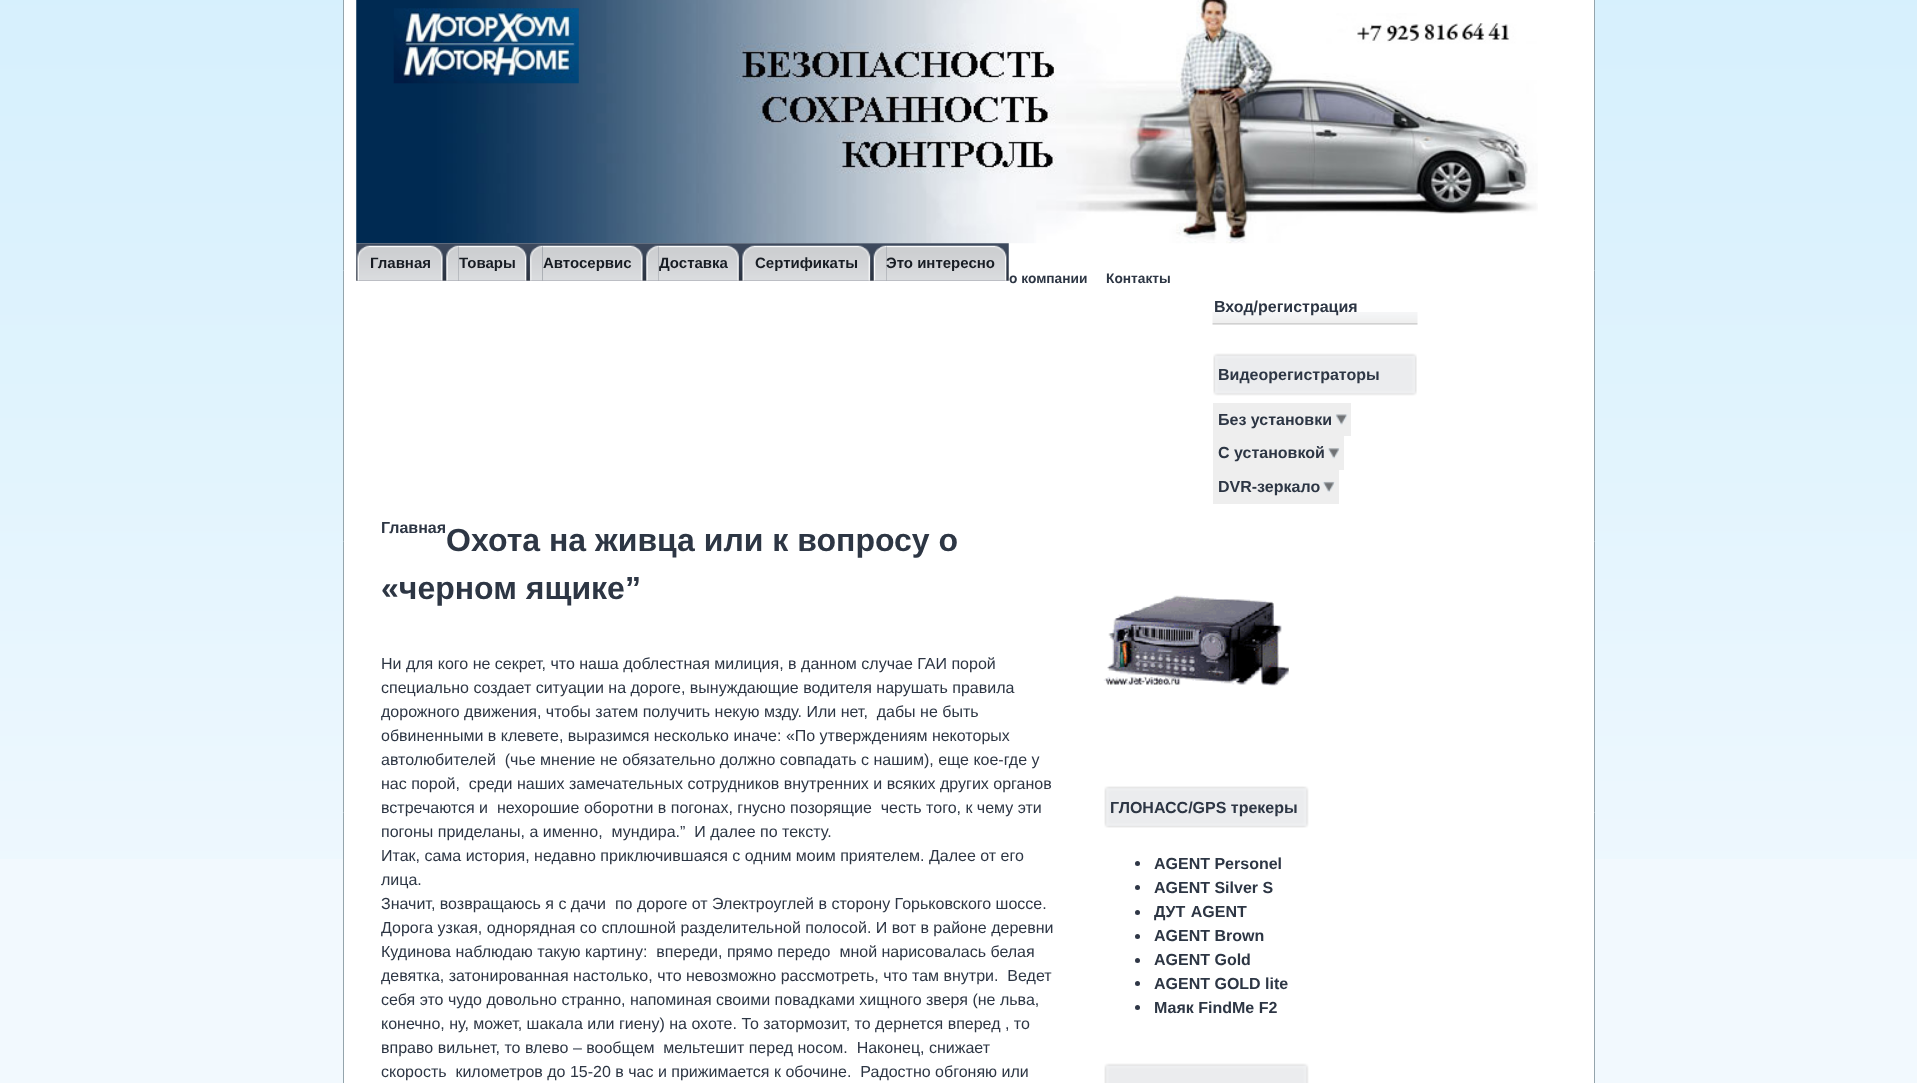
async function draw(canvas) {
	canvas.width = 1917;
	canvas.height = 1083;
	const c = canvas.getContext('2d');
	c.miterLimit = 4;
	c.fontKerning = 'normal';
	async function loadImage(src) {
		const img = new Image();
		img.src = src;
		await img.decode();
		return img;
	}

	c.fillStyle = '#f2f9fe';
	c.fillRect(0, 0, 1917, 1083);
	c.drawImage(await loadImage('img1.png'), 0, 0, 1917, 859);
	c.fillStyle = '#fff';
	c.beginPath();
	c.rect(343.5, -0.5, 1251, 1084);
	c.fill();
	c.strokeStyle = '#94a4ac';
	c.stroke();
	c.drawImage(await loadImage('img2.png'), 356, 0, 1182, 244);
	c.drawImage(await loadImage('img3.png'), 393, 8, 186, 76);
	c.drawImage(await loadImage('img4.png'), 356, 243, 653, 38);
	c.drawImage(await loadImage('img5.png'), 357, 245, 13, 36);
	c.drawImage(await loadImage('img6.png'), 370, 245, 73, 36);
	c.font = 'bold 15px Liberation Sans';
	c.fillStyle = '#171c23';
	c.fillText('Главная', 370, 268);
	c.drawImage(await loadImage('img7.png'), 446, 245, 13, 36);
	c.drawImage(await loadImage('img8.png'), 458, 245, 69, 36);
	c.fillText('Товары', 459, 268);
	c.drawImage(await loadImage('img9.png'), 529, 245, 14, 36);
	c.drawImage(await loadImage('img10.png'), 542, 245, 101, 36);
	c.fillText('Автосервис', 543, 268);
	c.drawImage(await loadImage('img11.png'), 646, 245, 13, 36);
	c.drawImage(await loadImage('img12.png'), 658, 245, 81, 36);
	c.fillText('Доставка', 659, 268);
	c.drawImage(await loadImage('img13.png'), 742, 245, 13, 36);
	c.drawImage(await loadImage('img14.png'), 755, 245, 116, 36);
	c.fillText('Сертификаты', 755, 268);
	c.drawImage(await loadImage('img15.png'), 873, 245, 14, 36);
	c.drawImage(await loadImage('img16.png'), 886, 245, 121, 36);
	c.fillText('Это интересно', 886, 268);
	c.font = 'bold 13.75px Liberation Sans';
	c.fillStyle = '#2d3644';
	c.fillText('о компании', 1009, 283);
	c.fillText('Контакты', 1106, 283);
	c.drawImage(await loadImage('img17.png'), 1212, 312, 206, 13);
	c.font = 'bold 16px Liberation Sans';
	c.fillText('Вход/регистрация', 1214, 312);
	c.drawImage(await loadImage('img18.png'), 1213, 353, 204, 43);
	c.fillText('Видеорегистраторы', 1218, 380);
	c.fillStyle = '#eee';
	c.fillRect(1213, 403, 138, 33);
	c.drawImage(await loadImage('img19.png'), 1335, 414, 13, 11);
	c.fillStyle = '#2d3644';
	c.fillText('Без установки', 1218, 425);
	c.fillStyle = '#eee';
	c.fillRect(1213, 436, 131, 34);
	c.drawImage(await loadImage('img20.png'), 1327, 448, 13, 11);
	c.fillStyle = '#2d3644';
	c.fillText('С установкой', 1218, 458);
	c.fillStyle = '#eee';
	c.fillRect(1213, 470, 126, 34);
	c.drawImage(await loadImage('img21.png'), 1322, 481, 13, 11);
	c.fillStyle = '#2d3644';
	c.fillText('DVR-зеркало', 1218, 492);
	c.fillText('Главная', 381, 533);
	c.font = 'bold 32px Liberation Sans';
	c.fillText('Охота на живца или к вопросу о', 446, 551);
	c.fillText('«черном ящике”', 381, 599);
	c.font = '16px Liberation Sans';
	for (const [text, x, y] of [
		['Ни для кого не секрет, что наша доблестная милиция, в данном случае ГАИ порой', 381, 669],
		['специально создает ситуации на дороге, вынуждающие водителя нарушать правила', 381, 693],
		['дорожного движения, чтобы затем получить некую мзду. Или нет,  дабы не быть', 381, 717],
		['обвиненными в клевете, выразимся несколько иначе: «По утверждениям некоторых', 381, 741],
		['автолюбителей  (чье мнение не обязательно должно совпадать с нашим), еще кое-где у', 381, 765],
		['нас порой,  среди наших замечательных сотрудников внутренних и всяких других органов', 381, 789],
		['встречаются и  нехорошие оборотни в погонах, гнусно позорящие  честь того, к чему эти', 381, 813],
		['погоны приделаны, а именно,  мундира.”  И далее по тексту.', 381, 837],
		['Итак, сама история, недавно приключившаяся с одним моим приятелем. Далее от его', 381, 861],
		['лица.', 381, 885],
		['Значит, возвращаюсь я с дачи  по дороге от Электроуглей в сторону Горьковского шоссе.', 381, 909],
		['Дорога узкая, однорядная со сплошной разделительной полосой. И вот в районе деревни', 381, 933],
		['Кудинова наблюдаю такую картину:  впереди, прямо передо  мной нарисовалась белая', 381, 957],
		['девятка, затонированная настолько, что невозможно рассмотреть, что там внутри.  Ведет', 381, 981],
		['себя это чудо довольно странно, напоминая своими повадками хищного зверя (не льва,', 381, 1005],
		['конечно, ну, может, шакала или гиену) на охоте. То затормозит, то дернется вперед , то', 381, 1029],
		['вправо вильнет, то влево – вообщем  мельтешит перед носом.  Наконец, снижает', 381, 1053],
		['скорость  километров до 15-20 в час и прижимается к обочине.  Радостно обгоняю или', 381, 1077],
	]) {
		c.fillText(text, x, y);
	}
	c.drawImage(await loadImage('img22.png'), 1103, 595, 186, 91);
	c.drawImage(await loadImage('img23.png'), 1104, 786, 205, 42);
	c.font = 'bold 16px Liberation Sans';
	c.fillText('ГЛОНАСС/GPS трекеры', 1110, 813);
	c.fillStyle = '#2f3746';
	c.beginPath();
	c.arc(1137.5, 863.5, 2.5, 0, 2 * Math.PI);
	c.fill();
	c.fillStyle = '#2d3644';
	c.fillText('AGENT Personel', 1154, 869);
	c.fillStyle = '#2f3746';
	c.beginPath();
	c.arc(1137.5, 887.5, 2.5, 0, 2 * Math.PI);
	c.fill();
	c.fillStyle = '#2d3644';
	c.fillText('AGENT Silver S', 1154, 893);
	c.fillStyle = '#2f3746';
	c.beginPath();
	c.arc(1137.5, 912.5, 2.5, 0, 2 * Math.PI);
	c.fill();
	c.wordSpacing = '1px';
	c.fillStyle = '#2d3644';
	c.fillText('ДУТ AGENT', 1154, 917);
	c.fillStyle = '#2f3746';
	c.beginPath();
	c.arc(1137.5, 936.5, 2.5, 0, 2 * Math.PI);
	c.fill();
	c.wordSpacing = '0px';
	c.fillStyle = '#2d3644';
	c.fillText('AGENT Brown', 1154, 941);
	c.fillStyle = '#2f3746';
	c.beginPath();
	c.arc(1137.5, 960.5, 2.5, 0, 2 * Math.PI);
	c.fill();
	c.fillStyle = '#2d3644';
	c.fillText('AGENT Gold', 1154, 965);
	c.fillStyle = '#2f3746';
	c.beginPath();
	c.arc(1137.5, 983.5, 2.5, 0, 2 * Math.PI);
	c.fill();
	c.fillStyle = '#2d3644';
	c.fillText('AGENT GOLD lite', 1154, 989);
	c.fillStyle = '#2f3746';
	c.beginPath();
	c.arc(1137.5, 1007.5, 2.5, 0, 2 * Math.PI);
	c.fill();
	c.fillStyle = '#2d3644';
	c.fillText('Маяк FindMe F2', 1154, 1013);
	c.drawImage(await loadImage('img24.png'), 1104, 1063, 205, 20);
}

draw(document.querySelector('canvas'));
